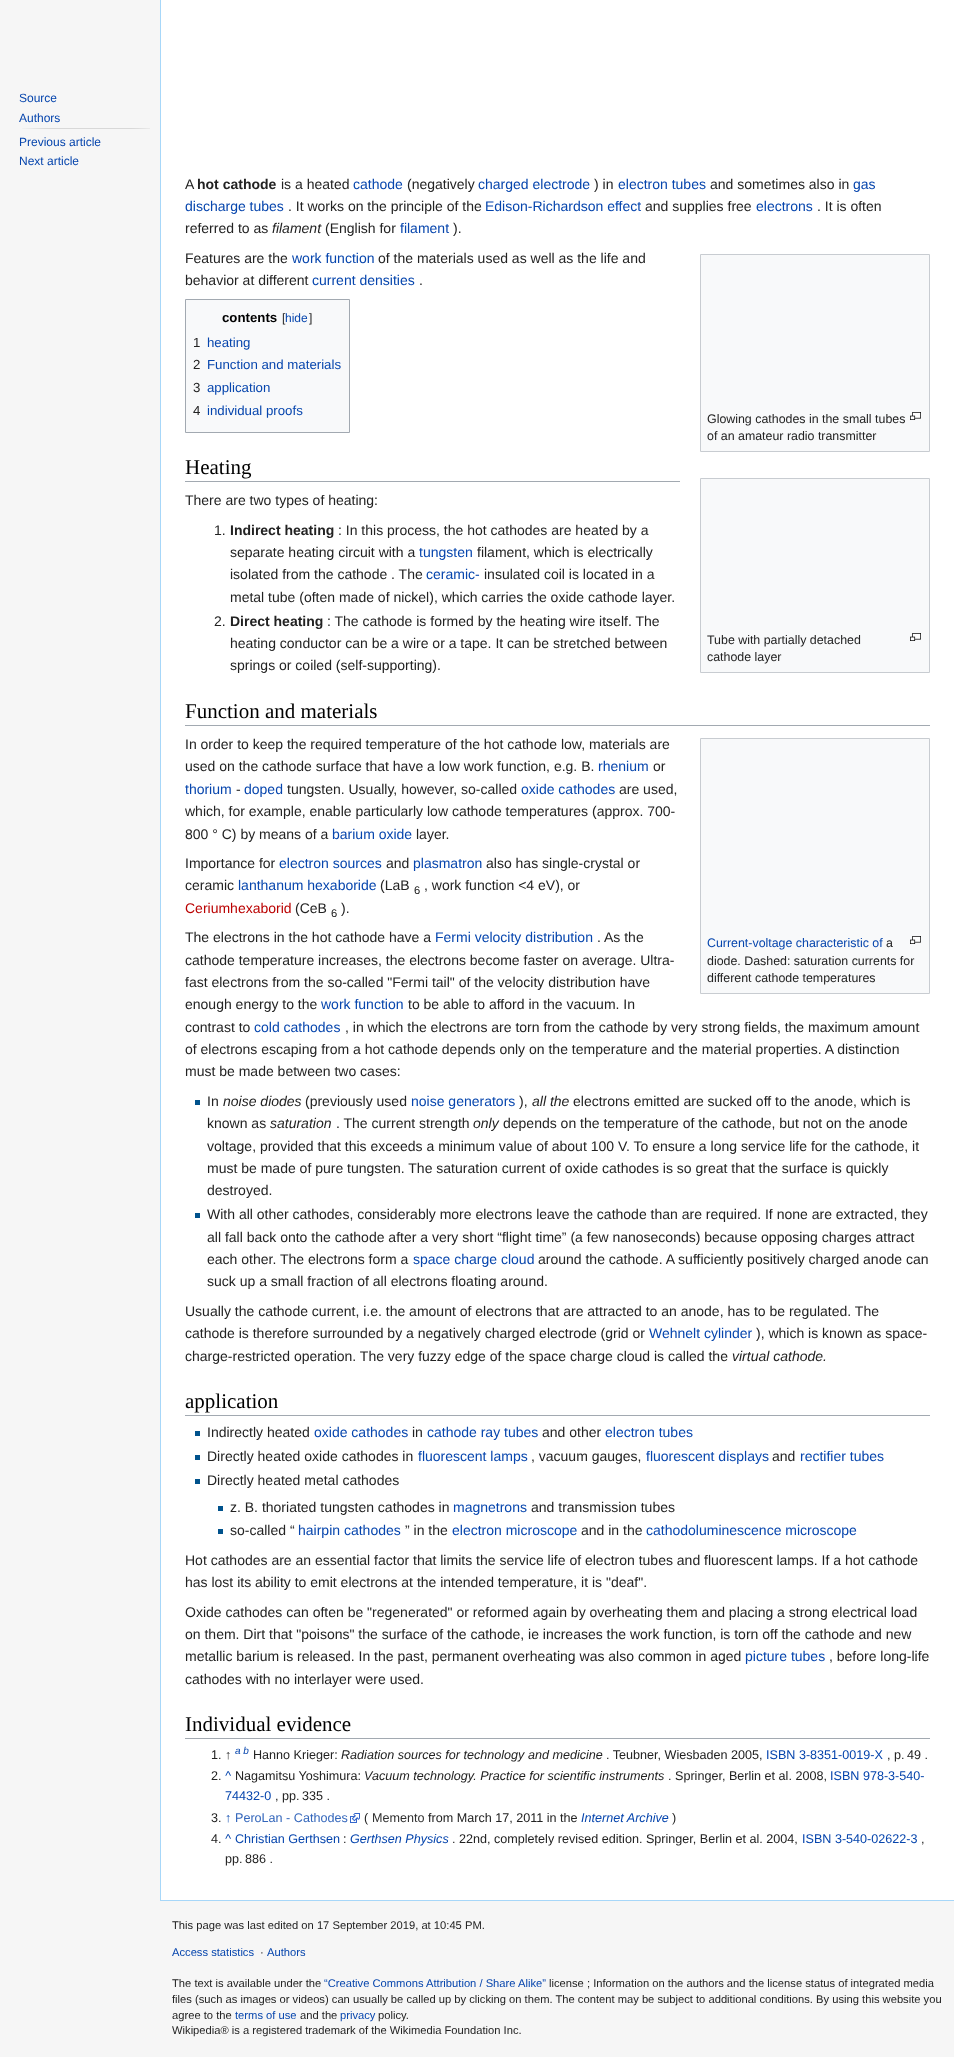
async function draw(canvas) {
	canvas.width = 954;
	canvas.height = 2057;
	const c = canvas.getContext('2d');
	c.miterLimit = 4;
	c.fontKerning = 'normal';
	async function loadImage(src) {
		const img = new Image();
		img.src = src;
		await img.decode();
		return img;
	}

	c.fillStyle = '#f6f6f6';
	c.fillRect(0, 0, 954, 2057);
	c.font = '12px Liberation Sans';
	c.fillStyle = '#0645ad';
	c.fillText('Source', 19, 102);
	c.fillText('Authors', 19, 122);
	c.drawImage(await loadImage('img1.png'), 22, 128, 128, 1);
	c.fillText('Previous article', 19, 146);
	c.fillText('Next article', 19, 165);
	for (const [x, y, w, h, color] of [
		[161, 0, 793, 1900, '#fff'],
		[160, 1900, 794, 1, '#a7d7f9'],
		[160, 0, 1, 1901, '#a7d7f9'],
	]) {
		c.fillStyle = color;
		c.fillRect(x, y, w, h);
	}
	c.font = '14px Liberation Sans';
	c.fillStyle = '#222';
	c.fillText('A', 185, 189);
	c.font = 'bold 14px Liberation Sans';
	c.fillText('hot cathode', 197, 189);
	c.font = '14px Liberation Sans';
	c.fillText('is a heated', 281, 189);
	c.fillStyle = '#0645ad';
	c.fillText('cathode', 353, 189);
	c.fillStyle = '#222';
	c.fillText('(negatively', 407, 189);
	c.fillStyle = '#0645ad';
	c.fillText('charged electrode', 478, 189);
	c.fillStyle = '#222';
	c.fillText(') in', 594, 189);
	c.fillStyle = '#0645ad';
	c.fillText('electron tubes', 618, 189);
	c.fillStyle = '#222';
	c.fillText('and sometimes also in', 710, 189);
	c.fillStyle = '#0645ad';
	c.fillText('gas', 853, 189);
	c.fillText('discharge tubes', 185, 211);
	c.fillStyle = '#222';
	c.fillText('. It works on the principle of the', 288, 211);
	c.fillStyle = '#0645ad';
	c.fillText('Edison-Richardson effect', 485, 211);
	c.fillStyle = '#222';
	c.fillText('and supplies free', 645, 211);
	c.fillStyle = '#0645ad';
	c.fillText('electrons', 756, 211);
	c.fillStyle = '#222';
	c.fillText('. It is often', 817, 211);
	c.fillText('referred to as', 185, 233);
	c.font = 'italic 14px Liberation Sans';
	c.fillText('filament', 272, 233);
	c.font = '14px Liberation Sans';
	c.fillText('(English for', 325, 233);
	c.fillStyle = '#0645ad';
	c.fillText('filament', 400, 233);
	c.fillStyle = '#222';
	c.fillText(').', 453, 233);
	c.fillText('Features are the', 185, 263);
	c.fillStyle = '#0645ad';
	c.fillText('work function', 292, 263);
	c.fillStyle = '#222';
	c.fillText('of the materials used as well as the life and', 378, 263);
	c.fillText('behavior at different', 185, 285);
	c.fillStyle = '#0645ad';
	c.fillText('current densities', 312, 285);
	c.fillStyle = '#222';
	c.fillText('.', 419, 285);
	c.fillStyle = '#f8f9fa';
	c.beginPath();
	c.rect(185.5, 299.5, 164, 133);
	c.fill();
	c.strokeStyle = '#a2a9b1';
	c.stroke();
	c.font = 'bold 13.25px Liberation Sans';
	c.fillStyle = '#000';
	c.fillText('contents', 222, 322);
	c.font = '12px Liberation Sans';
	c.fillStyle = '#222';
	c.fillText('[', 282, 322);
	c.fillStyle = '#0645ad';
	c.fillText('hide', 285, 322);
	c.fillStyle = '#222';
	c.fillText(']', 309, 322);
	c.font = '13.25px Liberation Sans';
	c.fillText('1', 193, 347);
	c.fillStyle = '#0645ad';
	c.fillText('heating', 207, 347);
	c.fillStyle = '#222';
	c.fillText('2', 193, 369);
	c.fillStyle = '#0645ad';
	c.fillText('Function and materials', 207, 369);
	c.fillStyle = '#222';
	c.fillText('3', 193, 392);
	c.fillStyle = '#0645ad';
	c.fillText('application', 207, 392);
	c.fillStyle = '#222';
	c.fillText('4', 193, 415);
	c.fillStyle = '#0645ad';
	c.fillText('individual proofs', 207, 415);
	c.fillStyle = '#f8f9fa';
	c.beginPath();
	c.rect(700.5, 254.5, 229, 197);
	c.fill();
	c.strokeStyle = '#c8ccd1';
	c.stroke();
	c.font = '12.4px Liberation Sans';
	c.fillStyle = '#222';
	c.fillText('Glowing cathodes in the small tubes', 707, 423);
	c.drawImage(await loadImage('img2.png'), 910, 412, 11, 8);
	c.fillText('of an amateur radio transmitter', 707, 440);
	c.fillStyle = '#a2a9b1';
	c.fillRect(185, 481, 495, 1);
	c.font = '21px Liberation Serif';
	c.fillStyle = '#000';
	c.fillText('Heating', 185, 474);
	c.font = '14px Liberation Sans';
	c.fillStyle = '#222';
	c.fillText('There are two types of heating:', 185, 505);
	c.fillText('1.', 214, 535);
	c.font = 'bold 14px Liberation Sans';
	c.fillText('Indirect heating', 230, 535);
	c.font = '14px Liberation Sans';
	c.fillText(': In this process, the hot cathodes are heated by a', 338, 535);
	c.fillText('separate heating circuit with a', 230, 557);
	c.fillStyle = '#0645ad';
	c.fillText('tungsten', 419, 557);
	c.fillStyle = '#222';
	c.fillText('filament, which is electrically', 477, 557);
	c.fillText('isolated from the cathode . The', 230, 579);
	c.fillStyle = '#0645ad';
	c.fillText('ceramic-', 426, 579);
	c.fillStyle = '#222';
	for (const [text, x, y] of [
		['insulated coil is located in a', 484, 579],
		['metal tube (often made of nickel), which carries the oxide cathode layer.', 230, 602],
		['2.', 214, 626],
	]) {
		c.fillText(text, x, y);
	}
	c.font = 'bold 14px Liberation Sans';
	c.fillText('Direct heating', 230, 626);
	c.font = '14px Liberation Sans';
	for (const [text, x, y] of [
		[': The cathode is formed by the heating wire itself. The', 327, 626],
		['heating conductor can be a wire or a tape. It can be stretched between', 230, 648],
		['springs or coiled (self-supporting).', 230, 670],
	]) {
		c.fillText(text, x, y);
	}
	c.fillStyle = '#f8f9fa';
	c.beginPath();
	c.rect(700.5, 478.5, 229, 194);
	c.fill();
	c.stroke();
	c.font = '12.4px Liberation Sans';
	c.fillStyle = '#222';
	c.fillText('Tube with partially detached', 707, 644);
	c.drawImage(await loadImage('img2.png'), 910, 633, 11, 8);
	c.fillText('cathode layer', 707, 661);
	c.fillStyle = '#a2a9b1';
	c.fillRect(185, 725, 745, 1);
	c.font = '21px Liberation Serif';
	c.fillStyle = '#000';
	c.fillText('Function and materials', 185, 718);
	c.font = '14px Liberation Sans';
	c.fillStyle = '#222';
	c.fillText('In order to keep the required temperature of the hot cathode low, materials are', 185, 749);
	c.fillText('used on the cathode surface that have a low work function, e.g. B.', 185, 771);
	c.fillStyle = '#0645ad';
	c.fillText('rhenium', 598, 771);
	c.fillStyle = '#222';
	c.fillText('or', 653, 771);
	c.fillStyle = '#0645ad';
	c.fillText('thorium', 185, 794);
	c.fillStyle = '#222';
	c.fillText('-', 236, 794);
	c.fillStyle = '#0645ad';
	c.fillText('doped', 244, 794);
	c.fillStyle = '#222';
	c.fillText('tungsten. Usually, however, so-called', 287, 794);
	c.fillStyle = '#0645ad';
	c.fillText('oxide cathodes', 521, 794);
	c.fillStyle = '#222';
	for (const [text, x, y] of [
		['are used,', 619, 794],
		['which, for example, enable particularly low cathode temperatures (approx. 700-', 185, 816],
		['800 ° C) by means of a', 185, 839],
	]) {
		c.fillText(text, x, y);
	}
	c.fillStyle = '#0645ad';
	c.fillText('barium oxide', 332, 839);
	c.fillStyle = '#222';
	c.fillText('layer.', 416, 839);
	c.fillText('Importance for', 185, 868);
	c.fillStyle = '#0645ad';
	c.fillText('electron sources', 279, 868);
	c.fillStyle = '#222';
	c.fillText('and', 386, 868);
	c.fillStyle = '#0645ad';
	c.fillText('plasmatron', 413, 868);
	c.fillStyle = '#222';
	c.fillText('also has single-crystal or', 486, 868);
	c.fillText('ceramic', 185, 890);
	c.fillStyle = '#0645ad';
	c.fillText('lanthanum hexaboride', 238, 890);
	c.fillStyle = '#222';
	c.fillText('(LaB', 380, 890);
	c.font = '11.2px Liberation Sans';
	c.fillText('6', 414, 894);
	c.font = '14px Liberation Sans';
	c.fillText(', work function <4 eV), or', 424, 890);
	c.fillStyle = '#ba0000';
	c.fillText('Ceriumhexaborid', 185, 913);
	c.fillStyle = '#222';
	c.fillText('(CeB', 295, 913);
	c.font = '11.2px Liberation Sans';
	c.fillText('6', 331, 917);
	c.font = '14px Liberation Sans';
	c.fillText(').', 341, 913);
	c.fillText('The electrons in the hot cathode have a', 185, 942);
	c.fillStyle = '#0645ad';
	c.fillText('Fermi velocity distribution', 435, 942);
	c.fillStyle = '#222';
	for (const [text, x, y] of [
		['. As the', 597, 942],
		['cathode temperature increases, the electrons become faster on average. Ultra-', 185, 965],
		['fast electrons from the so-called "Fermi tail" of the velocity distribution have', 185, 987],
		['enough energy to the', 185, 1009],
	]) {
		c.fillText(text, x, y);
	}
	c.fillStyle = '#0645ad';
	c.fillText('work function', 321, 1009);
	c.fillStyle = '#222';
	c.fillText('to be able to afford in the vacuum. In', 408, 1009);
	c.fillText('contrast to', 185, 1032);
	c.fillStyle = '#0645ad';
	c.fillText('cold cathodes', 254, 1032);
	c.fillStyle = '#222';
	for (const [text, x, y] of [
		[', in which the electrons are torn from the cathode by very strong fields, the maximum amount', 345, 1032],
		['of electrons escaping from a hot cathode depends only on the temperature and the material properties. A distinction', 185, 1054],
		['must be made between two cases:', 185, 1076],
	]) {
		c.fillText(text, x, y);
	}
	c.fillStyle = '#f8f9fa';
	c.beginPath();
	c.rect(700.5, 738.5, 229, 255);
	c.fill();
	c.stroke();
	c.font = '12.4px Liberation Sans';
	c.fillStyle = '#0645ad';
	c.fillText('Current-voltage characteristic of', 707, 947);
	c.fillStyle = '#222';
	c.fillText('a', 886, 947);
	c.drawImage(await loadImage('img2.png'), 910, 936, 11, 8);
	c.fillText('diode. Dashed: saturation currents for', 707, 965);
	c.fillText('different cathode temperatures', 707, 982);
	c.fillStyle = '#00528c';
	c.fillRect(195, 1100, 5, 5);
	c.font = '14px Liberation Sans';
	c.fillStyle = '#222';
	c.fillText('In', 207, 1106);
	c.font = 'italic 14px Liberation Sans';
	c.fillText('noise diodes', 223, 1106);
	c.font = '14px Liberation Sans';
	c.fillText('(previously used', 305, 1106);
	c.fillStyle = '#0645ad';
	c.fillText('noise generators', 411, 1106);
	c.fillStyle = '#222';
	c.fillText('),', 519, 1106);
	c.font = 'italic 14px Liberation Sans';
	c.fillText('all the', 532, 1106);
	c.font = '14px Liberation Sans';
	c.fillText('electrons emitted are sucked off to the anode, which is', 573, 1106);
	c.fillText('known as', 207, 1128);
	c.font = 'italic 14px Liberation Sans';
	c.fillText('saturation', 270, 1128);
	c.font = '14px Liberation Sans';
	c.fillText('. The current strength', 336, 1128);
	c.font = 'italic 14px Liberation Sans';
	c.fillText('only', 473, 1128);
	c.font = '14px Liberation Sans';
	for (const [text, x, y] of [
		['depends on the temperature of the cathode, but not on the anode', 503, 1128],
		['voltage, provided that this exceeds a minimum value of about 100 V. To ensure a long service life for the cathode, it', 207, 1151],
		['must be made of pure tungsten. The saturation current of oxide cathodes is so great that the surface is quickly', 207, 1173],
		['destroyed.', 207, 1195],
	]) {
		c.fillText(text, x, y);
	}
	c.fillStyle = '#00528c';
	c.fillRect(195, 1213, 5, 5);
	c.fillStyle = '#222';
	for (const [text, x, y] of [
		['With all other cathodes, considerably more electrons leave the cathode than are required. If none are extracted, they', 207, 1219],
		['all fall back onto the cathode after a very short “flight time” (a few nanoseconds) because opposing charges attract', 207, 1242],
		['each other. The electrons form a', 207, 1264],
	]) {
		c.fillText(text, x, y);
	}
	c.fillStyle = '#0645ad';
	c.fillText('space charge cloud', 413, 1264);
	c.fillStyle = '#222';
	for (const [text, x, y] of [
		['around the cathode. A sufficiently positively charged anode can', 538, 1264],
		['suck up a small fraction of all electrons floating around.', 207, 1286],
		['Usually the cathode current, i.e. the amount of electrons that are attracted to an anode, has to be regulated. The', 185, 1316],
		['cathode is therefore surrounded by a negatively charged electrode (grid or', 185, 1338],
	]) {
		c.fillText(text, x, y);
	}
	c.fillStyle = '#0645ad';
	c.fillText('Wehnelt cylinder', 649, 1338);
	c.fillStyle = '#222';
	c.fillText('), which is known as space-', 756, 1338);
	c.fillText('charge-restricted operation. The very fuzzy edge of the space charge cloud is called the', 185, 1361);
	c.font = 'italic 14px Liberation Sans';
	c.fillText('virtual cathode.', 732, 1361);
	c.fillStyle = '#a2a9b1';
	c.fillRect(185, 1415, 745, 1);
	c.font = '21px Liberation Serif';
	c.fillStyle = '#000';
	c.fillText('application', 185, 1408);
	c.fillStyle = '#00528c';
	c.fillRect(195, 1431, 5, 5);
	c.font = '14px Liberation Sans';
	c.fillStyle = '#222';
	c.fillText('Indirectly heated', 207, 1437);
	c.fillStyle = '#0645ad';
	c.fillText('oxide cathodes', 314, 1437);
	c.fillStyle = '#222';
	c.fillText('in', 412, 1437);
	c.fillStyle = '#0645ad';
	c.fillText('cathode ray tubes', 427, 1437);
	c.fillStyle = '#222';
	c.fillText('and other', 542, 1437);
	c.fillStyle = '#0645ad';
	c.fillText('electron tubes', 605, 1437);
	c.fillStyle = '#00528c';
	c.fillRect(195, 1455, 5, 5);
	c.fillStyle = '#222';
	c.fillText('Directly heated oxide cathodes in', 207, 1461);
	c.fillStyle = '#0645ad';
	c.fillText('fluorescent lamps', 418, 1461);
	c.fillStyle = '#222';
	c.fillText(', vacuum gauges,', 531, 1461);
	c.fillStyle = '#0645ad';
	c.fillText('fluorescent displays', 646, 1461);
	c.fillStyle = '#222';
	c.fillText('and', 772, 1461);
	c.fillStyle = '#0645ad';
	c.fillText('rectifier tubes', 800, 1461);
	c.fillStyle = '#00528c';
	c.fillRect(195, 1479, 5, 5);
	c.fillStyle = '#222';
	c.fillText('Directly heated metal cathodes', 207, 1485);
	c.fillStyle = '#00528c';
	c.fillRect(218, 1506, 5, 5);
	c.fillStyle = '#222';
	c.fillText('z. B. thoriated tungsten cathodes in', 230, 1512);
	c.fillStyle = '#0645ad';
	c.fillText('magnetrons', 453, 1512);
	c.fillStyle = '#222';
	c.fillText('and transmission tubes', 531, 1512);
	c.fillStyle = '#00528c';
	c.fillRect(218, 1529, 5, 5);
	c.fillStyle = '#222';
	c.fillText('so-called “', 230, 1535);
	c.fillStyle = '#0645ad';
	c.fillText('hairpin cathodes', 298, 1535);
	c.fillStyle = '#222';
	c.fillText('” in the', 405, 1535);
	c.fillStyle = '#0645ad';
	c.fillText('electron microscope', 452, 1535);
	c.fillStyle = '#222';
	c.fillText('and in the', 581, 1535);
	c.fillStyle = '#0645ad';
	c.fillText('cathodoluminescence microscope', 646, 1535);
	c.fillStyle = '#222';
	for (const [text, x, y] of [
		['Hot cathodes are an essential factor that limits the service life of electron tubes and fluorescent lamps. If a hot cathode', 185, 1565],
		['has lost its ability to emit electrons at the intended temperature, it is "deaf".', 185, 1587],
		['Oxide cathodes can often be "regenerated" or reformed again by overheating them and placing a strong electrical load', 185, 1617],
		['on them. Dirt that "poisons" the surface of the cathode, ie increases the work function, is torn off the cathode and new', 185, 1639],
		['metallic barium is released. In the past, permanent overheating was also common in aged', 185, 1661],
	]) {
		c.fillText(text, x, y);
	}
	c.fillStyle = '#0645ad';
	c.fillText('picture tubes', 745, 1661);
	c.fillStyle = '#222';
	c.fillText(', before long-life', 829, 1661);
	c.fillText('cathodes with no interlayer were used.', 185, 1684);
	c.fillStyle = '#a2a9b1';
	c.fillRect(185, 1738, 745, 1);
	c.font = '21px Liberation Serif';
	c.fillStyle = '#000';
	c.fillText('Individual evidence', 185, 1731);
	c.font = '12.6px Liberation Sans';
	c.fillStyle = '#222';
	c.fillText('1. ↑', 211, 1759);
	c.font = 'italic 10px Liberation Sans';
	c.fillStyle = '#0645ad';
	c.fillText('a b', 235, 1754);
	c.font = '12.6px Liberation Sans';
	c.fillStyle = '#222';
	c.fillText('Hanno Krieger:', 253, 1759);
	c.font = 'italic 12.6px Liberation Sans';
	c.fillText('Radiation sources for technology and medicine', 341, 1759);
	c.font = '12.6px Liberation Sans';
	c.fillText('. Teubner, Wiesbaden 2005,', 606, 1759);
	c.fillStyle = '#0645ad';
	c.fillText('ISBN 3-8351-0019-X', 766, 1759);
	c.fillStyle = '#222';
	for (const [text, x, y] of [
		[', p.', 887, 1759],
		['49 .', 907, 1759],
		['2.', 211, 1780],
	]) {
		c.fillText(text, x, y);
	}
	c.font = 'italic 12.6px Liberation Sans';
	c.fillStyle = '#0645ad';
	c.fillText('^', 225, 1780);
	c.font = '12.6px Liberation Sans';
	c.fillStyle = '#222';
	c.fillText('Nagamitsu Yoshimura:', 235, 1780);
	c.font = 'italic 12.6px Liberation Sans';
	c.fillText('Vacuum technology. Practice for scientific instruments', 364, 1780);
	c.font = '12.6px Liberation Sans';
	c.fillText('. Springer, Berlin et al. 2008,', 668, 1780);
	c.fillStyle = '#0645ad';
	c.fillText('ISBN 978-3-540-', 830, 1780);
	c.fillText('74432-0', 225, 1800);
	c.fillStyle = '#222';
	for (const [text, x, y] of [
		[', pp.', 275, 1800],
		['335 .', 302, 1800],
		['3.', 211, 1822],
	]) {
		c.fillText(text, x, y);
	}
	c.font = 'italic 12.6px Liberation Sans';
	c.fillStyle = '#0645ad';
	c.fillText('↑', 225, 1822);
	c.font = '12.6px Liberation Sans';
	c.fillStyle = '#36b';
	c.fillText('PeroLan - Cathodes', 235, 1822);
	c.drawImage(await loadImage('img3.png'), 350, 1813, 10, 10);
	c.fillStyle = '#222';
	c.fillText('(', 364, 1822);
	c.fillStyle = '#303030';
	c.fillText('Memento', 372, 1822);
	c.fillStyle = '#222';
	c.fillText('from March 17, 2011 in the', 428, 1822);
	c.font = 'italic 12.6px Liberation Sans';
	c.fillStyle = '#0645ad';
	c.fillText('Internet Archive', 581, 1822);
	c.font = '12.6px Liberation Sans';
	c.fillStyle = '#222';
	c.fillText(')', 672, 1822);
	c.fillText('4.', 211, 1843);
	c.font = 'italic 12.6px Liberation Sans';
	c.fillStyle = '#0645ad';
	c.fillText('^', 225, 1843);
	c.font = '12.6px Liberation Sans';
	c.fillText('Christian Gerthsen', 235, 1843);
	c.fillStyle = '#222';
	c.fillText(':', 343, 1843);
	c.font = 'italic 12.6px Liberation Sans';
	c.fillStyle = '#0645ad';
	c.fillText('Gerthsen Physics', 350, 1843);
	c.font = '12.6px Liberation Sans';
	c.fillStyle = '#222';
	c.fillText('. 22nd, completely revised edition. Springer, Berlin et al. 2004,', 452, 1843);
	c.fillStyle = '#0645ad';
	c.fillText('ISBN 3-540-02622-3', 802, 1843);
	c.fillStyle = '#222';
	for (const [text, x, y] of [
		[',', 921, 1843],
		['pp.', 225, 1863],
		['886 .', 245, 1863],
	]) {
		c.fillText(text, x, y);
	}
	c.font = '11.2px Liberation Sans';
	c.fillText('This page was last edited on 17 September 2019, at 10:45 PM.', 172, 1929);
	c.fillStyle = '#0645ad';
	c.fillText('Access statistics', 172, 1956);
	c.fillStyle = '#222';
	c.fillText('·', 260, 1956);
	c.fillStyle = '#0645ad';
	c.fillText('Authors', 267, 1956);
	c.fillStyle = '#222';
	c.fillText('The text is available under the', 172, 1987);
	c.fillStyle = '#0645ad';
	c.fillText('“Creative Commons Attribution / Share Alike”', 324, 1987);
	c.fillStyle = '#222';
	for (const [text, x, y] of [
		['license ; Information on the authors and the license status of integrated media', 549, 1987],
		['files (such as images or videos) can usually be called up by clicking on them. The content may be subject to additional conditions. By using this website you', 172, 2003],
		['agree to the', 172, 2019],
	]) {
		c.fillText(text, x, y);
	}
	c.fillStyle = '#0645ad';
	c.fillText('terms of use', 235, 2019);
	c.fillStyle = '#222';
	c.fillText('and the', 300, 2019);
	c.fillStyle = '#0645ad';
	c.fillText('privacy', 340, 2019);
	c.fillStyle = '#222';
	c.fillText('policy.', 378, 2019);
	c.fillText('Wikipedia® is a registered trademark of the Wikimedia Foundation Inc.', 172, 2034);
}

draw(document.querySelector('canvas'));
